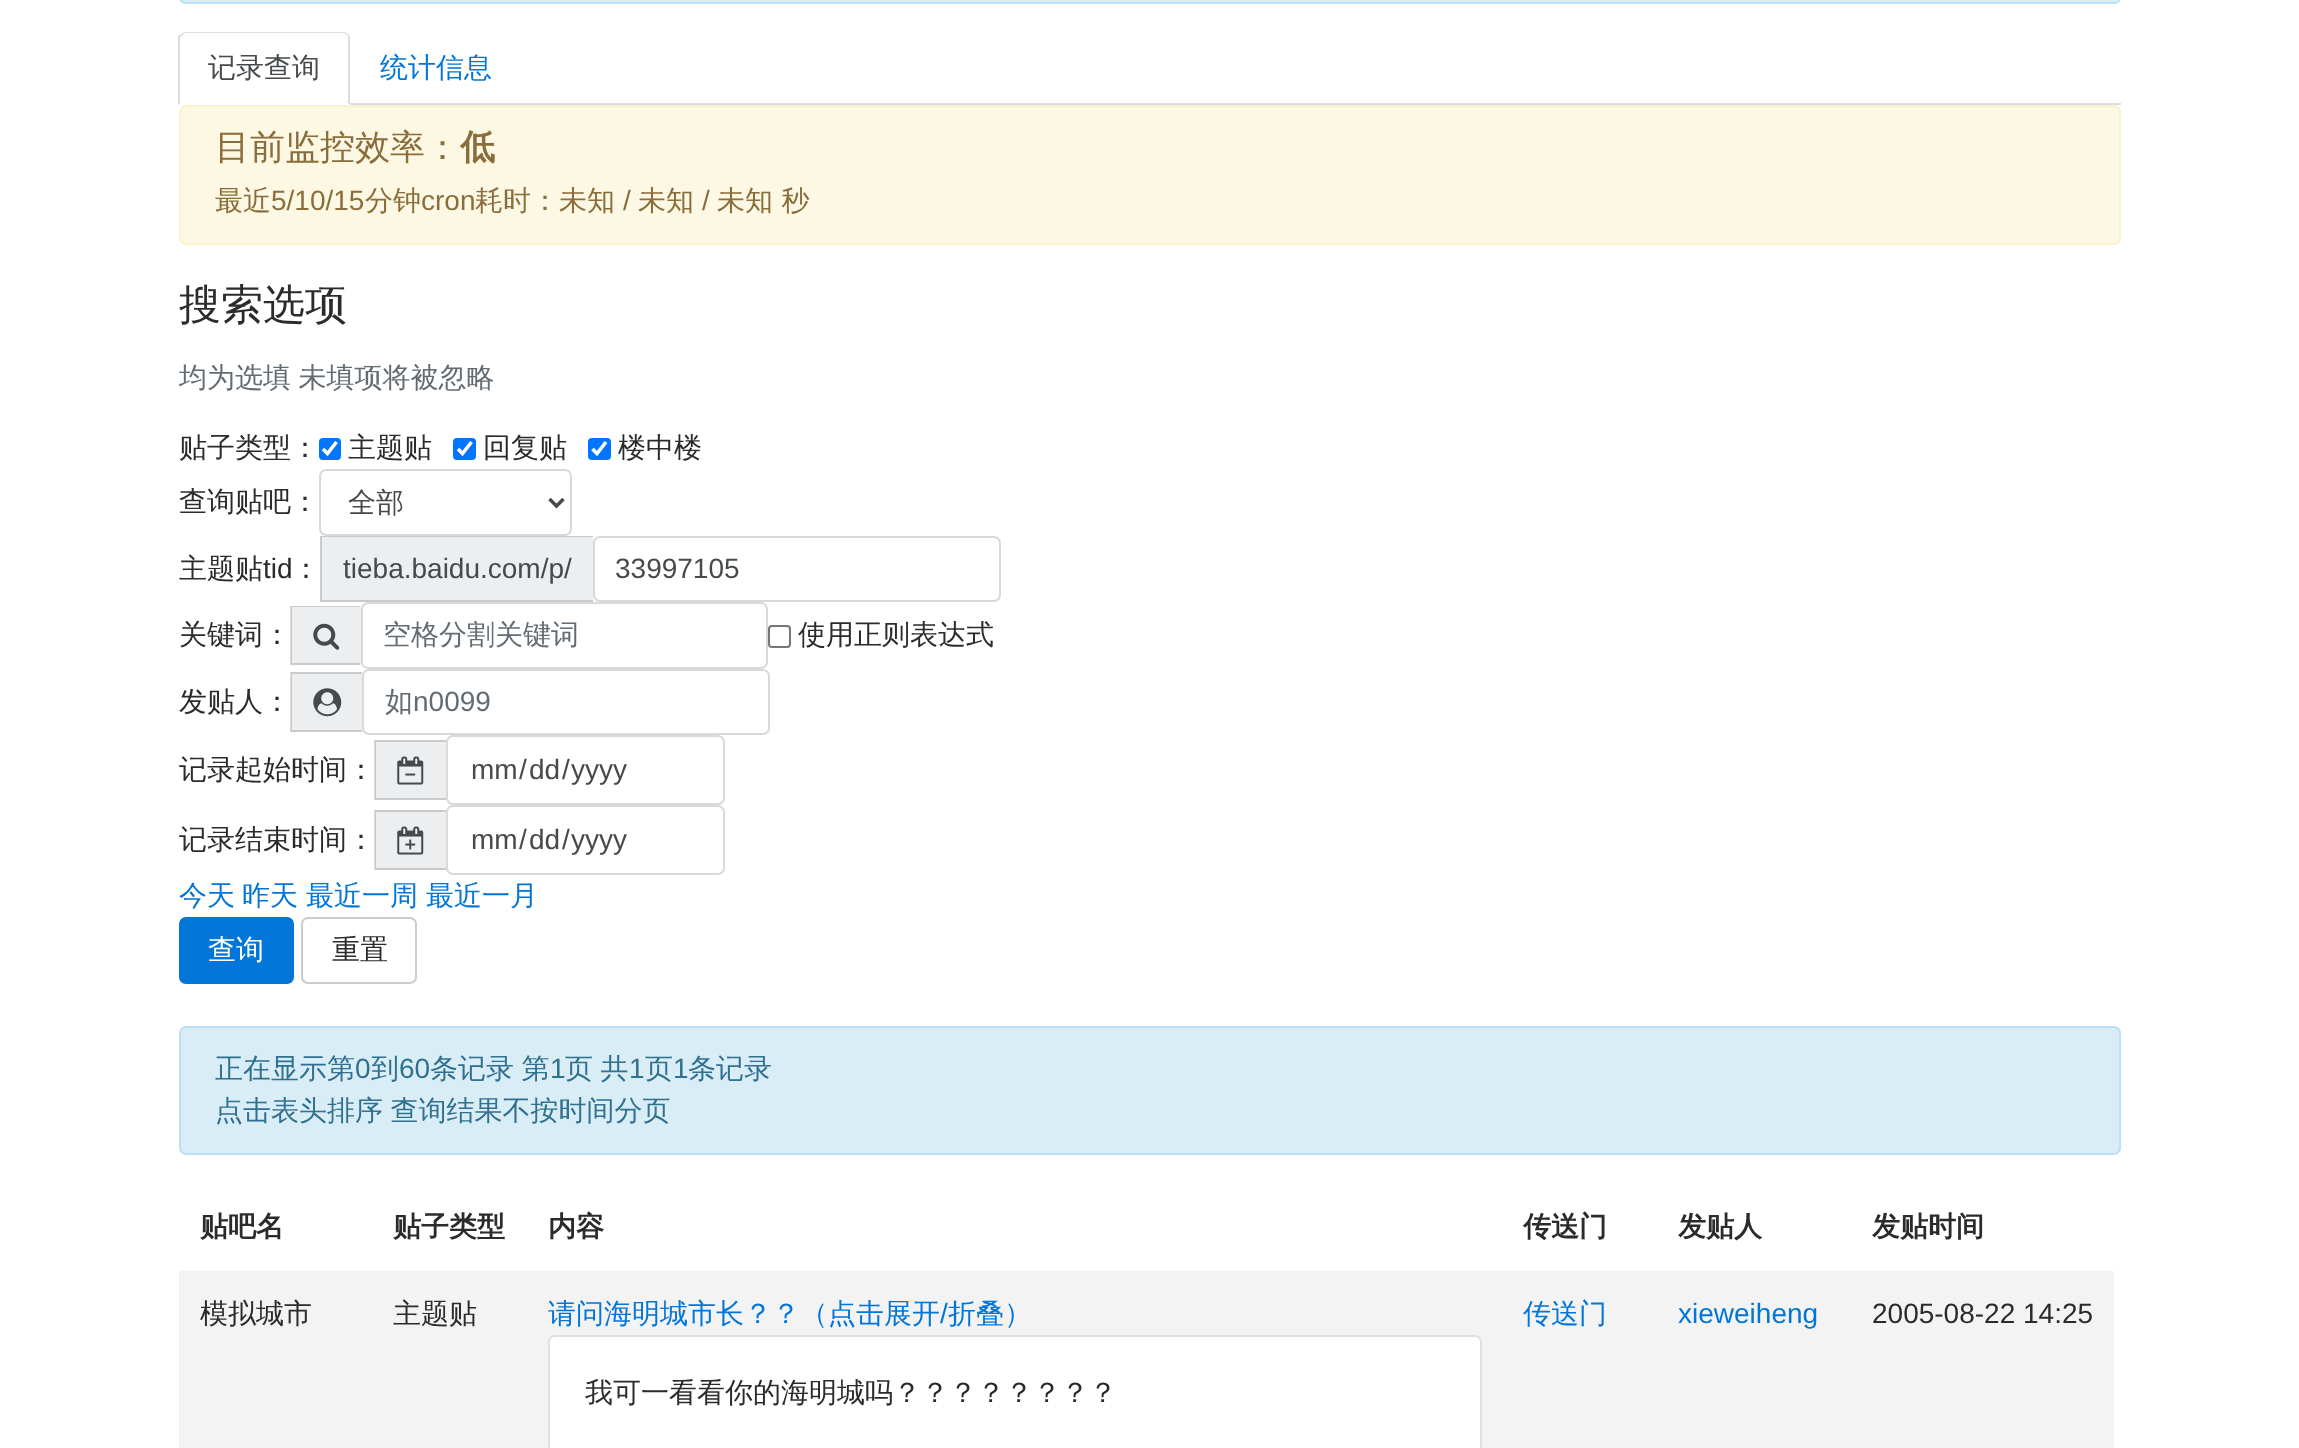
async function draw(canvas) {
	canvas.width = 2299;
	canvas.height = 1448;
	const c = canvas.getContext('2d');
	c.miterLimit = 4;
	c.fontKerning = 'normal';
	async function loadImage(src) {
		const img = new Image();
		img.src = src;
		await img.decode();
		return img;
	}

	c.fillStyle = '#fff';
	c.fillRect(0, 0, 2299, 1448);
	c.fillStyle = '#d9edf7';
	c.beginPath();
	c.roundRect(180, -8, 1940, 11, 6);
	c.fill();
	c.strokeStyle = '#bcdff1';
	c.lineWidth = 2;
	c.stroke();
	c.fillStyle = '#ddd';
	c.fillRect(350, 103, 1771, 2);
	c.beginPath();
	c.moveTo(186, 32);
	c.bezierCurveTo(184, 32, 182, 33, 181, 34);
	c.lineTo(182, 35);
	c.lineTo(185, 33);
	c.lineTo(343, 33);
	c.bezierCurveTo(344, 33, 346, 34, 347, 35);
	c.lineTo(348, 34);
	c.bezierCurveTo(347, 33, 345, 32, 343, 32);
	c.closePath();
	c.fill();
	c.beginPath();
	c.moveTo(348, 34);
	c.lineTo(350, 37);
	c.lineTo(350, 105);
	c.lineTo(348, 103);
	c.lineTo(348, 38);
	c.bezierCurveTo(348, 37, 348, 36, 347, 35);
	c.closePath();
	c.fill();
	c.fillStyle = '#fff';
	c.beginPath();
	c.moveTo(350, 105);
	c.lineTo(348, 103);
	c.lineTo(180, 103);
	c.lineTo(178, 105);
	c.closePath();
	c.fill();
	c.fillStyle = '#ddd';
	c.beginPath();
	c.moveTo(178, 105);
	c.lineTo(180, 103);
	c.lineTo(180, 38);
	c.lineTo(182, 35);
	c.lineTo(181, 34);
	c.lineTo(178, 36);
	c.closePath();
	c.fill();
	c.font = '500 28px WenQuanYi Zen Hei';
	c.fillStyle = '#464a4c';
	c.fillText('记录查询', 208, 77);
	c.fillStyle = '#0275d8';
	c.fillText('统计信息', 380, 77);
	c.fillStyle = '#fcf8e3';
	c.beginPath();
	c.roundRect(180, 106, 1940, 138, 6);
	c.fill();
	c.strokeStyle = '#faf2cc';
	c.stroke();
	c.font = '500 35px WenQuanYi Zen Hei';
	c.fillStyle = '#8a6d3b';
	c.fillText('目前监控效率：', 215, 159);
	c.font = 'bold 35px WenQuanYi Zen Hei';
	c.fillText('低', 460, 159);
	c.font = '500 28px WenQuanYi Zen Hei';
	c.fillText('最近', 215, 210);
	c.font = '28px Liberation Sans';
	c.fillText('5/10/15', 271, 210);
	c.font = '500 28px WenQuanYi Zen Hei';
	c.fillText('分钟', 365, 210);
	c.font = '28px Liberation Sans';
	c.fillText('cron', 421, 210);
	c.font = '500 28px WenQuanYi Zen Hei';
	c.fillText('耗时：未知', 475, 210);
	c.font = '28px Liberation Sans';
	c.fillText('/', 623, 210);
	c.font = '500 28px WenQuanYi Zen Hei';
	c.fillText('未知', 638, 210);
	c.font = '28px Liberation Sans';
	c.fillText('/', 702, 210);
	c.font = '500 28px WenQuanYi Zen Hei';
	c.fillText('未知 秒', 717, 210);
	c.font = '500 42px WenQuanYi Zen Hei';
	c.fillStyle = '#292b2c';
	c.fillText('搜索选项', 179, 319);
	c.wordSpacing = '-1px';
	c.font = '500 28px WenQuanYi Zen Hei';
	c.fillStyle = '#636c72';
	c.fillText('均为选填 未填项将被忽略', 179, 387);
	c.wordSpacing = '0px';
	c.fillStyle = '#292b2c';
	c.fillText('贴子类型：', 179, 457);
	c.fillStyle = '#0075ff';
	c.beginPath();
	c.roundRect(319, 438, 22, 22, 4);
	c.fill();
	c.beginPath();
	c.moveTo(323, 449);
	c.lineTo(327.5, 453.5);
	c.lineTo(336.5, 442);
	c.strokeStyle = '#fff';
	c.lineWidth = 3.6;
	c.stroke();
	c.fillStyle = '#292b2c';
	c.fillText('主题贴', 348, 457);
	c.fillStyle = '#0075ff';
	c.beginPath();
	c.roundRect(453, 438, 23, 22, 4);
	c.fill();
	c.beginPath();
	c.moveTo(458, 449);
	c.lineTo(462.5, 453.5);
	c.lineTo(471.5, 442);
	c.stroke();
	c.fillStyle = '#292b2c';
	c.fillText('回复贴', 483, 457);
	c.fillStyle = '#0075ff';
	c.beginPath();
	c.roundRect(588, 438, 23, 22, 4);
	c.fill();
	c.beginPath();
	c.moveTo(592.5, 449);
	c.lineTo(597, 453.5);
	c.lineTo(606, 442);
	c.stroke();
	c.fillStyle = '#292b2c';
	c.fillText('楼中楼', 618, 457);
	c.fillText('查询贴吧：', 179, 511);
	c.beginPath();
	c.roundRect(320, 470, 251, 65, 6);
	c.strokeStyle = '#d9d9d9';
	c.lineWidth = 2;
	c.stroke();
	c.beginPath();
	c.moveTo(549.5, 499);
	c.lineTo(556.5, 506);
	c.lineTo(563.5, 499);
	c.strokeStyle = '#464a4c';
	c.lineWidth = 3.5;
	c.stroke();
	c.fillStyle = '#464a4c';
	c.fillText('全部', 348, 512);
	c.fillStyle = '#292b2c';
	c.fillText('主题贴', 179, 578);
	c.font = '28px Liberation Sans';
	c.fillText('tid', 263, 578);
	c.font = '500 28px WenQuanYi Zen Hei';
	c.fillText('：', 292, 578);
	c.fillStyle = '#eceeef';
	c.fillRect(320, 536, 273, 66);
	c.fillStyle = '#c9cacb';
	c.beginPath();
	c.moveTo(320, 536);
	c.lineTo(593, 536);
	c.lineTo(593, 537);
	c.lineTo(322, 537);
	c.closePath();
	c.fill();
	c.beginPath();
	c.moveTo(593, 602);
	c.lineTo(320, 602);
	c.lineTo(322, 600);
	c.lineTo(593, 600);
	c.closePath();
	c.fill();
	c.fillStyle = '#00000026';
	c.beginPath();
	c.moveTo(320, 602);
	c.lineTo(320, 536);
	c.lineTo(322, 537);
	c.lineTo(322, 600);
	c.closePath();
	c.fill();
	c.font = '28px Liberation Sans';
	c.fillStyle = '#464a4c';
	c.fillText('tieba.baidu.com/p/', 343, 578);
	c.beginPath();
	c.roundRect(594, 537, 406, 64, 6);
	c.strokeStyle = '#d9d9d9';
	c.lineWidth = 2;
	c.stroke();
	c.fillText('33997105', 615, 578);
	c.font = '500 28px WenQuanYi Zen Hei';
	c.fillStyle = '#292b2c';
	c.fillText('关键词：', 179, 644);
	c.fillStyle = '#eceeef';
	c.fillRect(291, 606, 70, 59);
	c.fillStyle = '#c9cacb';
	c.beginPath();
	c.moveTo(290, 606);
	c.lineTo(360, 606);
	c.lineTo(360, 607);
	c.lineTo(292, 607);
	c.closePath();
	c.fill();
	c.fillStyle = '#00000026';
	c.beginPath();
	c.moveTo(360, 665);
	c.lineTo(290, 665);
	c.lineTo(292, 663);
	c.lineTo(360, 663);
	c.closePath();
	c.fill();
	c.beginPath();
	c.moveTo(290, 665);
	c.lineTo(290, 606);
	c.lineTo(292, 607);
	c.lineTo(292, 663);
	c.closePath();
	c.fill();
	c.drawImage(await loadImage('img1.png'), 313, 623, 27, 27);
	c.beginPath();
	c.roundRect(362, 603, 405, 65, 6);
	c.stroke();
	c.fillStyle = '#636c72';
	c.fillText('空格分割关键词', 383, 644);
	c.beginPath();
	c.roundRect(769, 626, 21, 21, 3);
	c.strokeStyle = '#767676';
	c.stroke();
	c.fillStyle = '#292b2c';
	c.fillText('使用正则表达式', 798, 644);
	c.fillText('发贴人：', 179, 711);
	c.fillStyle = '#eceeef';
	c.fillRect(291, 673, 71, 59);
	c.fillStyle = '#c9cacb';
	c.beginPath();
	c.moveTo(290, 672);
	c.lineTo(362, 672);
	c.lineTo(362, 674);
	c.lineTo(292, 674);
	c.closePath();
	c.fill();
	c.fillStyle = '#00000026';
	c.beginPath();
	c.moveTo(362, 732);
	c.lineTo(290, 732);
	c.lineTo(292, 730);
	c.lineTo(362, 730);
	c.closePath();
	c.fill();
	c.beginPath();
	c.moveTo(290, 732);
	c.lineTo(290, 672);
	c.lineTo(292, 674);
	c.lineTo(292, 730);
	c.closePath();
	c.fill();
	c.drawImage(await loadImage('img2.png'), 313, 688, 29, 29);
	c.beginPath();
	c.roundRect(363, 670, 406, 64, 6);
	c.strokeStyle = '#d9d9d9';
	c.stroke();
	c.fillStyle = '#636c72';
	c.fillText('如', 385, 711);
	c.font = '28px Liberation Sans';
	c.fillText('n0099', 413, 711);
	c.font = '500 28px WenQuanYi Zen Hei';
	c.fillStyle = '#292b2c';
	c.fillText('记录起始时间：', 179, 779);
	c.fillStyle = '#eceeef';
	c.fillRect(375, 741, 71, 59);
	c.fillStyle = '#c9cacb';
	c.beginPath();
	c.moveTo(374, 740);
	c.lineTo(446, 740);
	c.lineTo(446, 742);
	c.lineTo(376, 742);
	c.closePath();
	c.fill();
	c.fillStyle = '#00000026';
	c.beginPath();
	c.moveTo(446, 800);
	c.lineTo(374, 800);
	c.lineTo(376, 798);
	c.lineTo(446, 798);
	c.closePath();
	c.fill();
	c.beginPath();
	c.moveTo(374, 800);
	c.lineTo(374, 740);
	c.lineTo(376, 742);
	c.lineTo(376, 798);
	c.closePath();
	c.fill();
	c.drawImage(await loadImage('img3.png'), 397, 756, 27, 29);
	c.beginPath();
	c.roundRect(447, 736, 277, 68, 6);
	c.stroke();
	c.font = '28px Liberation Sans';
	c.fillStyle = '#464a4c';
	for (const [text, x, y] of [
		['mm', 471, 779],
		['/', 519, 779],
		['dd', 529, 779],
		['/', 562, 779],
		['yyyy', 571, 779],
	]) {
		c.fillText(text, x, y);
	}
	c.font = '500 28px WenQuanYi Zen Hei';
	c.fillStyle = '#292b2c';
	c.fillText('记录结束时间：', 179, 849);
	c.fillStyle = '#eceeef';
	c.fillRect(375, 811, 71, 59);
	c.fillStyle = '#c9cacb';
	c.beginPath();
	c.moveTo(374, 810);
	c.lineTo(446, 810);
	c.lineTo(446, 812);
	c.lineTo(376, 812);
	c.closePath();
	c.fill();
	c.fillStyle = '#00000026';
	c.beginPath();
	c.moveTo(446, 870);
	c.lineTo(374, 870);
	c.lineTo(376, 868);
	c.lineTo(446, 868);
	c.closePath();
	c.fill();
	c.beginPath();
	c.moveTo(374, 870);
	c.lineTo(374, 810);
	c.lineTo(376, 812);
	c.lineTo(376, 868);
	c.closePath();
	c.fill();
	c.drawImage(await loadImage('img4.png'), 397, 826, 27, 29);
	c.beginPath();
	c.roundRect(447, 806, 277, 68, 6);
	c.stroke();
	c.font = '28px Liberation Sans';
	c.fillStyle = '#464a4c';
	for (const [text, x, y] of [
		['mm', 471, 849],
		['/', 519, 849],
		['dd', 529, 849],
		['/', 562, 849],
		['yyyy', 571, 849],
	]) {
		c.fillText(text, x, y);
	}
	c.font = '500 28px WenQuanYi Zen Hei';
	c.fillStyle = '#0275d8';
	for (const [text, x, y] of [
		['今天', 179, 905],
		['昨天', 242, 905],
		['最近一周', 306, 905],
		['最近一月', 426, 905],
	]) {
		c.fillText(text, x, y);
	}
	c.beginPath();
	c.roundRect(180, 918, 113, 65, 6);
	c.fill();
	c.strokeStyle = '#0275d8';
	c.stroke();
	c.fillStyle = '#fff';
	c.fillText('查询', 208, 959);
	c.beginPath();
	c.roundRect(302, 918, 114, 65, 6);
	c.strokeStyle = '#ccc';
	c.stroke();
	c.fillStyle = '#292b2c';
	c.fillText('重置', 332, 959);
	c.fillStyle = '#d9edf7';
	c.beginPath();
	c.roundRect(180, 1027, 1940, 127, 6);
	c.fill();
	c.strokeStyle = '#bcdff1';
	c.stroke();
	c.fillStyle = '#31708f';
	c.fillText('正在显示第', 215, 1078);
	c.font = '28px Liberation Sans';
	c.fillText('0', 355, 1078);
	c.font = '500 28px WenQuanYi Zen Hei';
	c.fillText('到', 371, 1078);
	c.font = '28px Liberation Sans';
	c.fillText('60', 399, 1078);
	c.wordSpacing = '-1px';
	c.font = '500 28px WenQuanYi Zen Hei';
	c.fillText('条记录 第', 430, 1078);
	c.wordSpacing = '0px';
	c.font = '28px Liberation Sans';
	c.fillText('1', 550, 1078);
	c.wordSpacing = '-1px';
	c.font = '500 28px WenQuanYi Zen Hei';
	c.fillText('页 共', 565, 1078);
	c.wordSpacing = '0px';
	c.font = '28px Liberation Sans';
	c.fillText('1', 629, 1078);
	c.font = '500 28px WenQuanYi Zen Hei';
	c.fillText('页', 645, 1078);
	c.font = '28px Liberation Sans';
	c.fillText('1', 673, 1078);
	c.font = '500 28px WenQuanYi Zen Hei';
	c.fillText('条记录', 688, 1078);
	c.wordSpacing = '-1px';
	c.fillText('点击表头排序 查询结果不按时间分页', 215, 1120);
	c.wordSpacing = '0px';
	c.font = 'bold 28px WenQuanYi Zen Hei';
	c.fillStyle = '#292b2c';
	for (const [text, x, y] of [
		['贴吧名', 200, 1236],
		['贴子类型', 393, 1236],
		['内容', 548, 1236],
		['传送门', 1523, 1236],
		['发贴人', 1678, 1236],
		['发贴时间', 1872, 1236],
	]) {
		c.fillText(text, x, y);
	}
	c.fillStyle = '#f3f3f3';
	c.fillRect(179, 1271, 1935, 177);
	c.font = '500 28px WenQuanYi Zen Hei';
	c.fillStyle = '#292b2c';
	c.fillText('模拟城市', 200, 1323);
	c.fillText('主题贴', 393, 1323);
	c.fillStyle = '#0275d8';
	c.fillText('请问海明城市长？？（点击展开', 548, 1323);
	c.font = '28px Liberation Sans';
	c.fillText('/', 940, 1323);
	c.font = '500 28px WenQuanYi Zen Hei';
	c.fillText('折叠）', 948, 1323);
	c.fillStyle = '#fff';
	c.beginPath();
	c.roundRect(548, 1335, 934, 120, 7);
	c.fill();
	c.beginPath();
	c.roundRect(549, 1336, 932, 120, 6);
	c.strokeStyle = '#0000001f';
	c.stroke();
	c.fillStyle = '#292b2c';
	c.fillText('我可一看看你的海明城吗？？？？？？？？', 585, 1402);
	c.fillStyle = '#0275d8';
	c.fillText('传送门', 1523, 1323);
	c.font = '28px Liberation Sans';
	c.fillText('xieweiheng', 1678, 1323);
	c.fillStyle = '#292b2c';
	c.fillText('2005-08-22 14:25', 1872, 1323);
}

draw(document.querySelector('canvas'));
